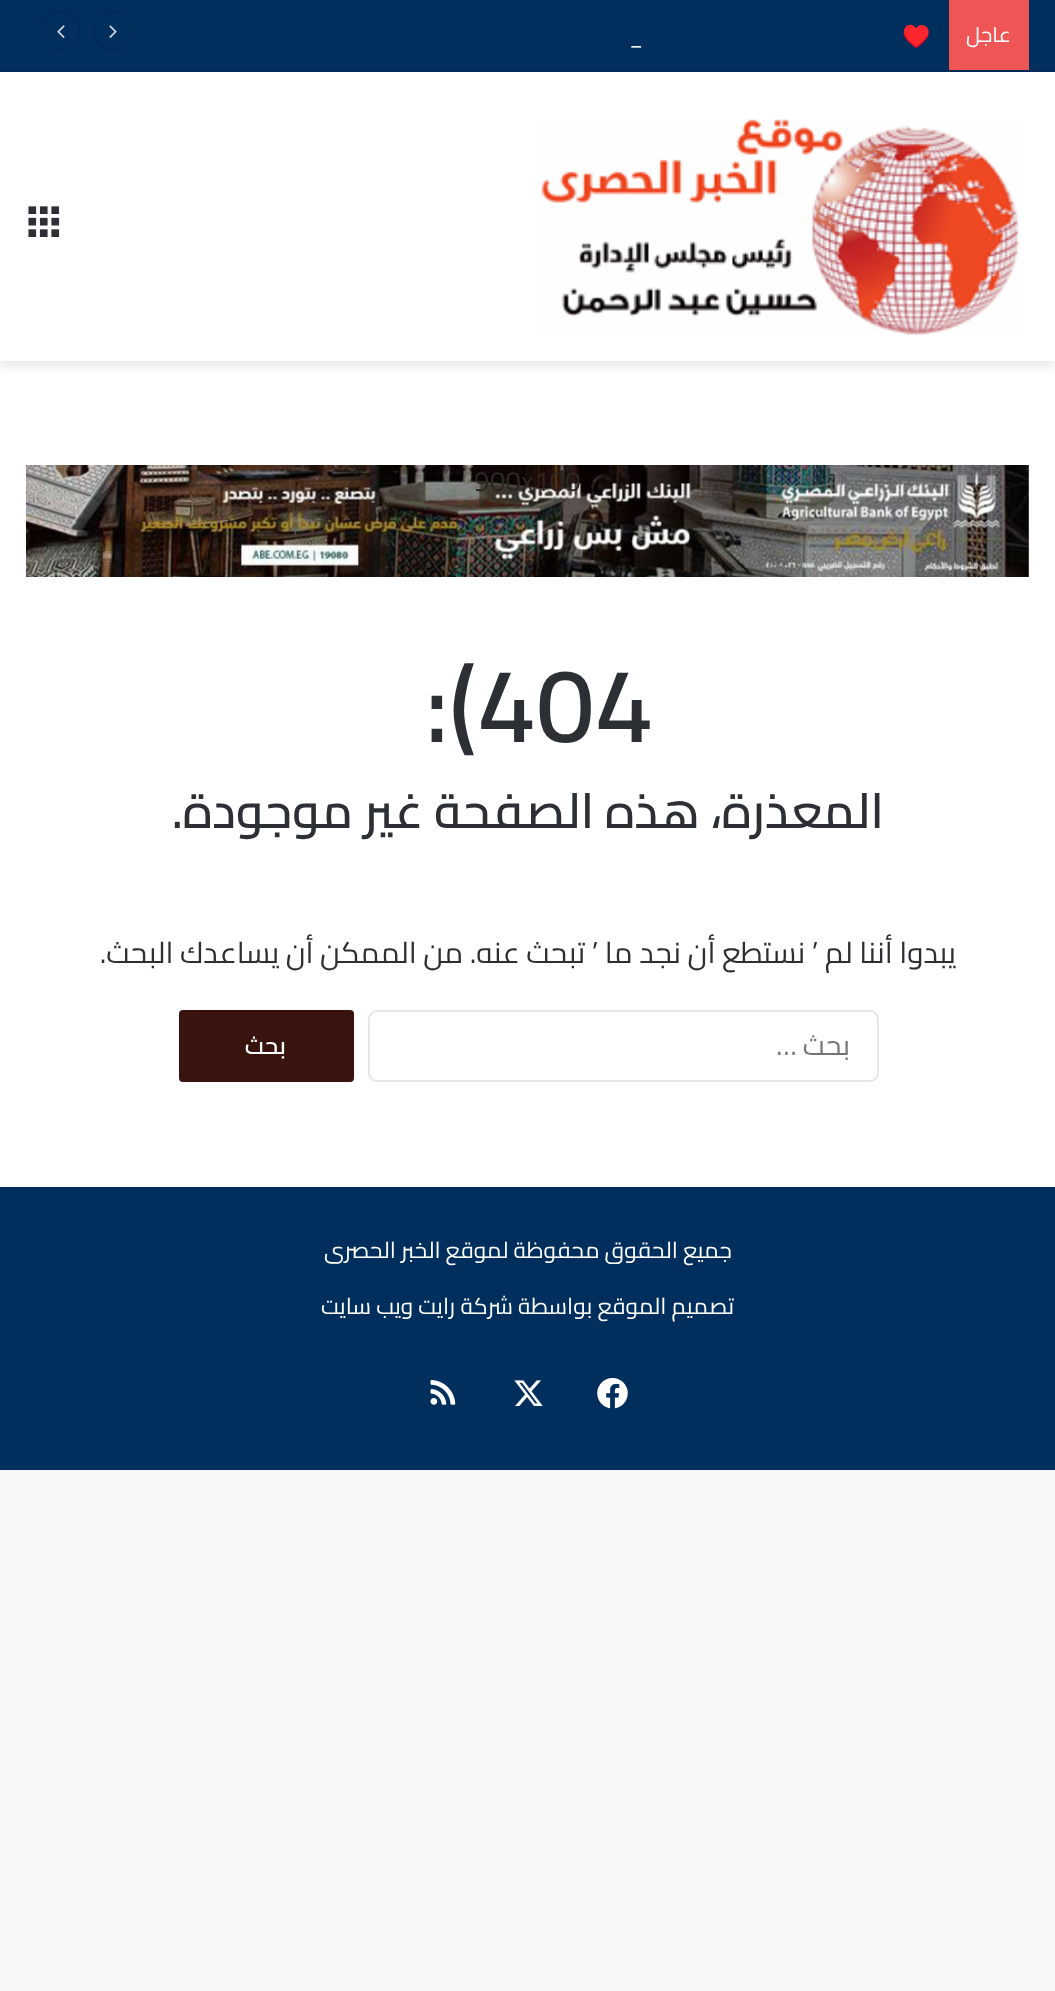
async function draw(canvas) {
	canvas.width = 1055;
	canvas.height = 1991;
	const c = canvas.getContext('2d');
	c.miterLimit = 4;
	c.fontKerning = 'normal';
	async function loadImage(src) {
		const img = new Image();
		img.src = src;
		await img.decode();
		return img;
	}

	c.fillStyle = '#f7f7f7';
	c.fillRect(0, 0, 1055, 1991);
	c.fillStyle = '#fff';
	c.fillRect(0, 361, 1055, 826);
	c.fillStyle = '#0000001a';
	c.filter = 'blur(6px)';
	c.beginPath();
	c.rect(0, 77, 1055, 289);
	c.fill();
	c.filter = 'none';
	for (const [x, y, w, h, color] of [
		[0, 0, 1055, 70, '#002f5e'],
		[0, 70, 1055, 2, '#002a55'],
		[949, 0, 80, 70, '#f05555'],
	]) {
		c.fillStyle = color;
		c.fillRect(x, y, w, h);
	}
	c.direction = 'rtl';
	c.font = '21px Cairo';
	c.fillStyle = '#fff';
	c.fillText('عاجل', 1011, 42);
	c.font = '22.75px Noto Color Emoji';
	c.fillText('♥️', 931, 44);
	c.direction = 'ltr';
	c.font = '22.75px Cairo';
	c.fillText('_', 629, 44);
	c.beginPath();
	c.moveTo(113, 50);
	c.bezierCurveTo(102, 50, 93.5, 41.5, 93.5, 30.5);
	c.bezierCurveTo(93.5, 20, 102, 11.5, 113, 11.5);
	c.bezierCurveTo(123.5, 11.5, 132, 20, 132, 30.5);
	c.bezierCurveTo(132, 41.5, 123.5, 50, 113, 50);
	c.closePath();
	c.strokeStyle = '#002a55';
	c.lineWidth = 1.8;
	c.stroke();
	c.drawImage(await loadImage('img1.png'), 109, 25, 8, 13);
	c.beginPath();
	c.moveTo(60.5, 50);
	c.bezierCurveTo(49.5, 50, 41, 41.5, 41, 30.5);
	c.bezierCurveTo(41, 20, 49.5, 11.5, 60.5, 11.5);
	c.bezierCurveTo(71, 11.5, 79.5, 20, 79.5, 30.5);
	c.bezierCurveTo(79.5, 41.5, 71, 50, 60.5, 50);
	c.closePath();
	c.stroke();
	c.drawImage(await loadImage('img2.png'), 57, 25, 8, 13);
	c.fillRect(0, 72, 1055, 289);
	c.drawImage(await loadImage('img3.png'), 541, 119, 479, 216);
	c.drawImage(await loadImage('img4.png'), 28, 206, 32, 31);
	c.drawImage(await loadImage('img5.png'), 26, 465, 1003, 112);
	c.font = '28px Cairo';
	c.fillStyle = '#2f2621';
	c.fillText('900x100', 474, 491);
	c.font = '600 105px Cairo';
	c.fillStyle = '#2c2f34';
	c.fillText(':(404', 425, 742);
	c.direction = 'rtl';
	c.font = '600 49px Cairo';
	c.fillText('المعذرة، هذه الصفحة غير موجودة.', 884, 828);
	c.font = '29.75px Cairo';
	c.fillText('يبدوا أننا لم ’ نستطع أن نجد ما ’ تبحث عنه. من الممكن أن يساعدك البحث.', 956, 963);
	c.beginPath();
	c.roundRect(369, 1011, 509, 70, 8);
	c.strokeStyle = '#e6e6e6';
	c.lineWidth = 2;
	c.stroke();
	c.font = '28px Cairo';
	c.fillStyle = '#757575';
	c.fillText('بحث …', 850, 1055);
	c.fillStyle = '#39130d';
	c.beginPath();
	c.roundRect(179, 1010, 175, 72, 4);
	c.fill();
	c.font = '600 24px Cairo';
	c.fillStyle = '#fff';
	c.fillText('بحث', 286, 1054);
	c.fillStyle = '#002f5e';
	c.fillRect(0, 1187, 1055, 283);
	c.font = '22.75px Cairo';
	c.fillStyle = '#fff';
	for (const [text, x, y] of [
		['جميع الحقوق محفوظة لموقع الخبر الحصرى', 732, 1258],
		['تصميم الموقع بواسطة شركة', 734, 1314],
		['رايت ويب سايت', 455, 1314],
	]) {
		c.fillText(text, x, y);
	}
	c.drawImage(await loadImage('img6.png'), 597, 1378, 31, 31);
	c.drawImage(await loadImage('img7.png'), 514, 1380, 29, 26);
	c.drawImage(await loadImage('img8.png'), 430, 1380, 26, 25);
}

draw(document.querySelector('canvas'));
